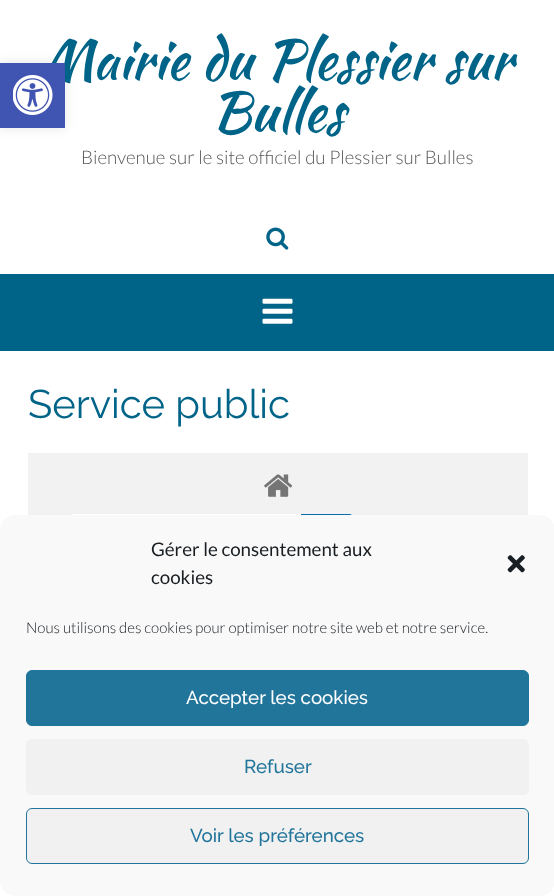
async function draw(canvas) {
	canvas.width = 554;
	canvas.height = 896;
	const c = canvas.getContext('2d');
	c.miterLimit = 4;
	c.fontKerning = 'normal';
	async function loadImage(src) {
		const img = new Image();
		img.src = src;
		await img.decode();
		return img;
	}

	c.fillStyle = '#fff';
	c.fillRect(0, 0, 554, 896);
	c.fillStyle = '#0000001a';
	c.filter = 'blur(6px)';
	c.beginPath();
	c.rect(0, 63, 65, 65);
	c.fill();
	c.filter = 'none';
	c.font = '55px Kaushan Script';
	c.fillStyle = '#006489';
	c.fillText('Mairie du Plessier sur', 42, 79);
	c.fillStyle = '#4054b2';
	c.fillRect(0, 63, 65, 65);
	c.drawImage(await loadImage('img1.png'), 13, 75, 40, 40);
	c.fillStyle = '#006489';
	c.fillText('Bulles', 211, 131);
	c.font = '300 18.75px Lato';
	c.fillStyle = '#58585a';
	c.fillText('Bienvenue sur le site officiel du Plessier sur Bulles', 81, 164);
	c.drawImage(await loadImage('img2.png'), 266, 227, 23, 23);
	c.fillStyle = '#006489';
	c.fillRect(0, 274, 554, 77);
	c.drawImage(await loadImage('img3.png'), 262, 298, 31, 26);
	c.font = '40px Raleway';
	c.fillText('Service public', 28, 418);
	c.fillStyle = '#f2f2f2';
	c.fillRect(28, 453, 500, 62);
	c.drawImage(await loadImage('img4.png'), 264, 474, 29, 23);
	c.fillStyle = '#fff';
	c.beginPath();
	c.roundRect(70, 514, 231, 57, [5, 0, 0, 5]);
	c.fill();
	c.fillStyle = '#0b6ba8';
	c.beginPath();
	c.roundRect(301, 514, 53, 55, [0, 5, 5, 0]);
	c.fill();
	c.fillStyle = '#f9f9f9';
	c.beginPath();
	c.roundRect(0, 515, 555, 381, 15);
	c.fill();
	c.font = '18.75px Lato';
	c.fillStyle = '#191e23';
	c.fillText('Gérer le consentement aux', 151, 556);
	c.fillText('cookies', 151, 584);
	c.drawImage(await loadImage('img5.png'), 507, 555, 18, 18);
	c.font = '300 15px Lato';
	c.fillText('Nous utilisons des cookies pour optimiser notre site web et notre service.', 26, 633);
	c.fillStyle = '#21759b';
	c.beginPath();
	c.roundRect(26.5, 670.5, 502, 55, 5.5);
	c.fill();
	c.strokeStyle = '#21759b';
	c.stroke();
	c.font = '500 18.75px Raleway';
	c.fillStyle = '#fff';
	c.fillText('Accepter les cookies', 186, 704);
	c.fillStyle = '#f1f1f1';
	c.beginPath();
	c.roundRect(26, 739, 503, 56, 6);
	c.fill();
	c.fillStyle = '#21759b';
	c.fillText('Refuser', 244, 773);
	c.fillStyle = '#f1f1f1';
	c.beginPath();
	c.roundRect(26.5, 808.5, 502, 55, 5.5);
	c.fill();
	c.stroke();
	c.fillStyle = '#21759b';
	c.fillText('Voir les préférences', 190, 842);
}

draw(document.querySelector('canvas'));
